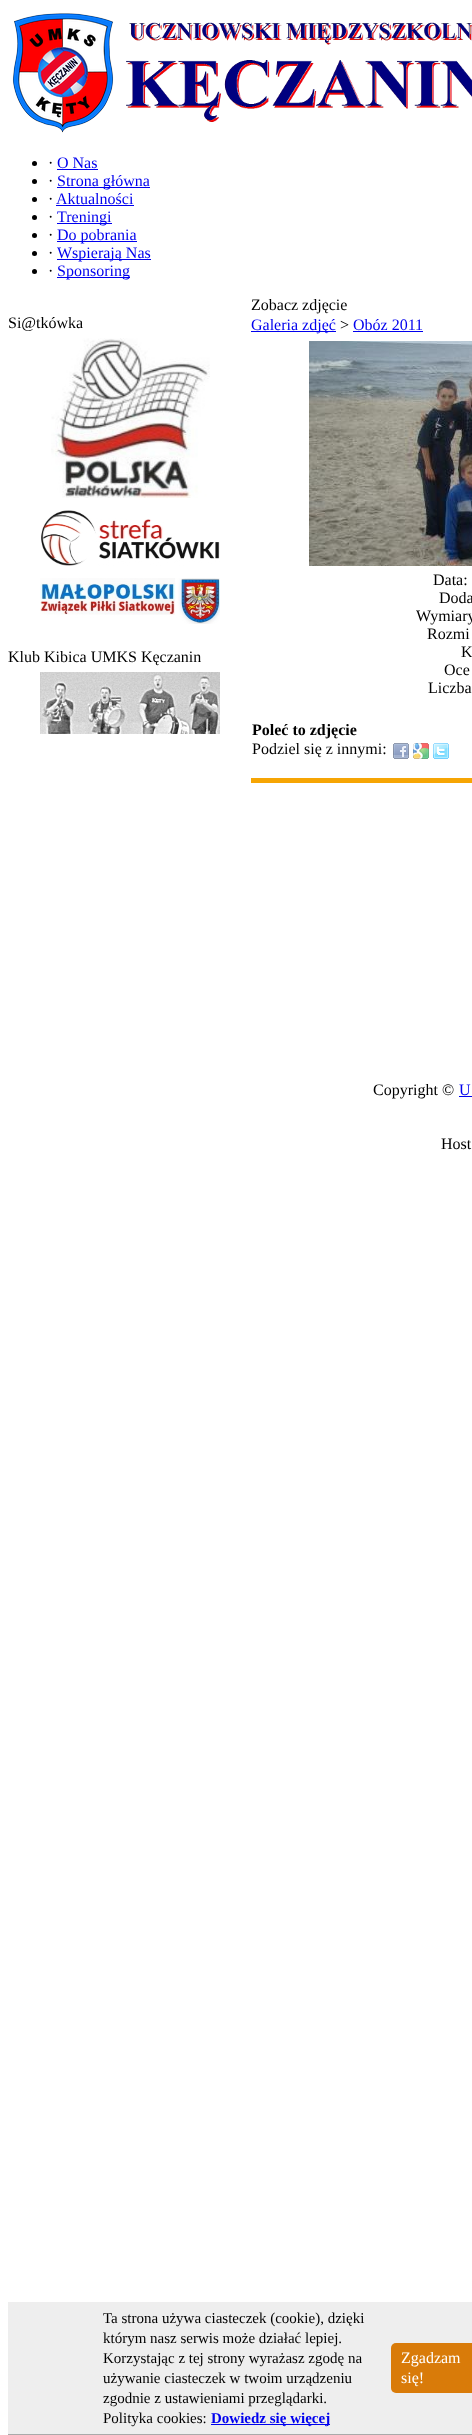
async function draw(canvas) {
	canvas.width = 472;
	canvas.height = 2435;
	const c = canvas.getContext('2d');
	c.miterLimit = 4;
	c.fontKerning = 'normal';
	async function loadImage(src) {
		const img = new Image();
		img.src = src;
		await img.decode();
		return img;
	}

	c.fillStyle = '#fff';
	c.fillRect(0, 0, 472, 2435);
	c.drawImage(await loadImage('img1.png'), 12, 13, 102, 120);
	c.drawImage(await loadImage('img2.png'), 126, 22, 346, 101);
	c.fillStyle = '#000';
	c.beginPath();
	c.arc(34.5, 163.5, 2.5, 0, 2 * Math.PI);
	c.fill();
	c.font = '16px Liberation Serif';
	c.fillText('·', 48, 168);
	c.fillStyle = '#00e';
	c.fillText('O Nas', 57, 168);
	c.fillRect(57, 169, 41, 1);
	c.fillStyle = '#000';
	c.beginPath();
	c.arc(34.5, 181.5, 2.5, 0, 2 * Math.PI);
	c.fill();
	c.fillText('·', 48, 186);
	c.fillStyle = '#00e';
	c.fillRect(57, 187, 93, 1);
	c.fillText('Strona główna', 57, 186);
	c.fillStyle = '#000';
	c.beginPath();
	c.arc(34.5, 199.5, 2.5, 0, 2 * Math.PI);
	c.fill();
	c.fillText('·', 48, 204);
	c.fillStyle = '#00e';
	c.fillText('Aktualności', 56, 204);
	c.fillRect(56, 205, 78, 1);
	c.fillStyle = '#000';
	c.beginPath();
	c.arc(34.5, 217.5, 2.5, 0, 2 * Math.PI);
	c.fill();
	c.fillText('·', 48, 222);
	c.fillStyle = '#00e';
	c.fillRect(57, 223, 55, 1);
	c.fillText('Treningi', 57, 222);
	c.fillStyle = '#000';
	c.beginPath();
	c.arc(34.5, 235.5, 2.5, 0, 2 * Math.PI);
	c.fill();
	c.fillText('·', 48, 240);
	c.fillStyle = '#00e';
	c.fillRect(57, 241, 80, 1);
	c.fillText('Do pobrania', 57, 240);
	c.fillStyle = '#000';
	c.beginPath();
	c.arc(34.5, 253.5, 2.5, 0, 2 * Math.PI);
	c.fill();
	c.fillText('·', 48, 258);
	c.fillStyle = '#00e';
	c.fillRect(57, 259, 94, 1);
	c.fillText('Wspierają Nas', 57, 258);
	c.fillStyle = '#000';
	c.beginPath();
	c.arc(34.5, 271.5, 2.5, 0, 2 * Math.PI);
	c.fill();
	c.fillText('·', 48, 276);
	c.fillStyle = '#00e';
	c.fillRect(57, 277, 73, 1);
	c.fillText('Sponsoring', 57, 276);
	c.fillStyle = '#000';
	c.fillText('Si@tkówka', 8, 328);
	c.drawImage(await loadImage('img3.png'), 51, 338, 159, 160);
	c.drawImage(await loadImage('img4.png'), 41, 510, 179, 56);
	c.drawImage(await loadImage('img5.png'), 40, 578, 180, 46);
	c.fillText('Klub Kibica UMKS Kęczanin', 8, 662);
	c.drawImage(await loadImage('img6.png'), 40, 672, 180, 62);
	c.fillText('Zobacz zdjęcie', 251, 310);
	c.fillStyle = '#00e';
	c.fillRect(251, 331, 85, 1);
	c.fillText('Galeria zdjęć', 251, 330);
	c.fillStyle = '#000';
	c.fillText('>', 340, 330);
	c.fillStyle = '#00e';
	c.fillText('Obóz 2011', 353, 330);
	c.fillRect(353, 331, 70, 1);
	c.drawImage(await loadImage('img7.png'), 309, 341, 163, 225);
	c.fillStyle = '#000';
	for (const [text, x, y] of [
		['Data:', 433, 585],
		['Doda', 439, 603],
		['Wymiary', 416, 621],
		['Rozmi', 427, 639],
		['K', 461, 657],
		['Oce', 444, 675],
		['Liczba', 428, 693],
	]) {
		c.fillText(text, x, y);
	}
	c.font = 'bold 16px Liberation Serif';
	c.fillText('Poleć to zdjęcie', 252, 735);
	c.font = '16px Liberation Serif';
	c.fillText('Podziel się z innymi:', 252, 754);
	c.drawImage(await loadImage('img8.png'), 393, 743, 16, 16);
	c.drawImage(await loadImage('img9.png'), 413, 743, 16, 16);
	c.drawImage(await loadImage('img10.png'), 433, 743, 16, 16);
	c.fillStyle = '#f6a504';
	c.fillRect(251, 778, 221, 5);
	c.fillStyle = '#000';
	c.fillText('Copyright ©', 373, 1095);
	c.fillStyle = '#00e';
	c.fillText('U', 459, 1095);
	c.fillRect(459, 1096, 13, 1);
	c.fillStyle = '#000';
	c.fillText('Host', 441, 1149);
	c.fillStyle = '#eee';
	c.fillRect(8, 2302, 464, 132);
	c.fillStyle = '#aaa';
	c.fillRect(8, 2434, 464, 1);
	c.font = '15px Liberation Serif';
	c.fillStyle = '#000';
	for (const [text, x, y] of [
		['Ta strona używa ciasteczek (cookie), dzięki', 103, 2323],
		['którym nasz serwis może działać lepiej.', 103, 2343],
		['Korzystając z tej strony wyrażasz zgodę na', 103, 2363],
		['używanie ciasteczek w twoim urządzeniu', 103, 2383],
		['zgodnie z ustawieniami przeglądarki.', 103, 2403],
		['Polityka cookies:', 103, 2423],
	]) {
		c.fillText(text, x, y);
	}
	c.fillStyle = '#00e';
	c.fillRect(211, 2424, 119, 1);
	c.font = 'bold 15px Liberation Serif';
	c.fillText('Dowiedz się więcej', 211, 2423);
	c.fillStyle = '#d97b09';
	c.beginPath();
	c.roundRect(391, 2343, 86, 50, 5);
	c.fill();
	c.font = '16px Liberation Serif';
	c.fillStyle = '#fff';
	c.fillText('Zgadzam', 401, 2363);
	c.fillText('się!', 401, 2383);
}

draw(document.querySelector('canvas'));
